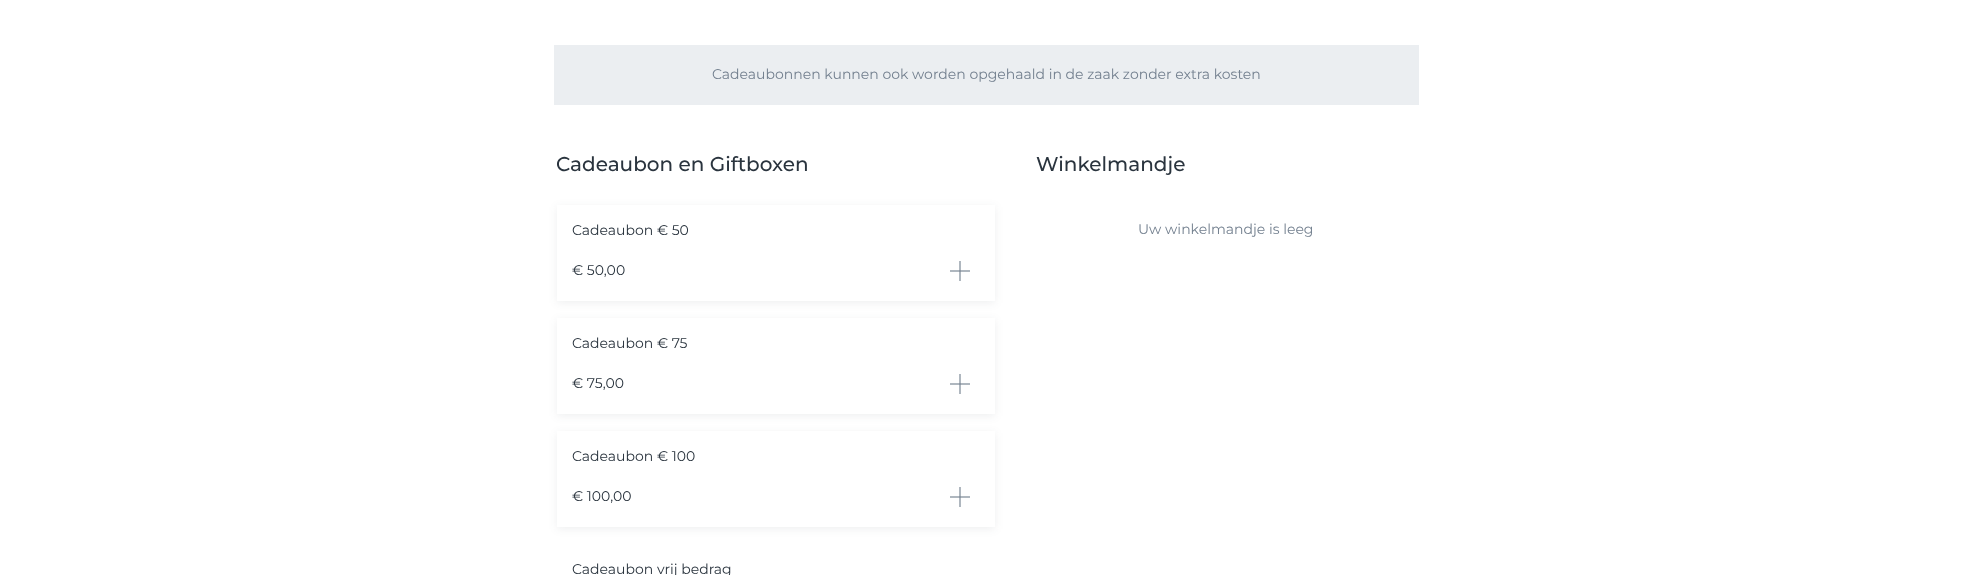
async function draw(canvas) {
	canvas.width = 1972;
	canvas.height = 575;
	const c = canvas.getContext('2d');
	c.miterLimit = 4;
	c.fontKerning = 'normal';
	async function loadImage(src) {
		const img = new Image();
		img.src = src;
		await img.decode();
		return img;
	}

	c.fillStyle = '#fff';
	c.fillRect(0, 0, 1972, 575);
	c.fillStyle = '#ebeef1';
	c.fillRect(554, 45, 865, 60);
	c.font = '14px Montserrat';
	c.fillStyle = '#727f8e';
	c.fillText('Cadeaubonnen kunnen ook worden opgehaald in de zaak zonder extra kosten', 712, 79);
	c.font = '500 20px Montserrat';
	c.fillStyle = '#2a343e';
	c.fillText('Cadeaubon en Giftboxen', 556, 171);
	c.save();
	c.beginPath();
	c.moveTo(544, 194);
	c.lineTo(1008, 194);
	c.lineTo(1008, 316);
	c.lineTo(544, 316);
	c.closePath();
	c.moveTo(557, 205);
	c.lineTo(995, 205);
	c.lineTo(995, 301);
	c.lineTo(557, 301);
	c.closePath();
	c.clip('evenodd');
	c.fillStyle = '#2a343e14';
	c.filter = 'blur(4px)';
	c.beginPath();
	c.rect(557, 207, 438, 96);
	c.fill();
	c.filter = 'none';
	c.restore();
	c.font = '14px Montserrat';
	c.fillText('Cadeaubon € 50', 572, 235);
	c.fillText('€ 50,00', 572, 275);
	c.drawImage(await loadImage('img1.png'), 950, 261, 20, 20);
	c.save();
	c.beginPath();
	c.moveTo(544, 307);
	c.lineTo(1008, 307);
	c.lineTo(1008, 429);
	c.lineTo(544, 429);
	c.closePath();
	c.moveTo(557, 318);
	c.lineTo(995, 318);
	c.lineTo(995, 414);
	c.lineTo(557, 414);
	c.closePath();
	c.clip('evenodd');
	c.fillStyle = '#2a343e14';
	c.filter = 'blur(4px)';
	c.beginPath();
	c.rect(557, 320, 438, 96);
	c.fill();
	c.filter = 'none';
	c.restore();
	c.fillText('Cadeaubon € 75', 572, 348);
	c.fillText('€ 75,00', 572, 388);
	c.drawImage(await loadImage('img1.png'), 950, 374, 20, 20);
	c.save();
	c.beginPath();
	c.moveTo(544, 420);
	c.lineTo(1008, 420);
	c.lineTo(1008, 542);
	c.lineTo(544, 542);
	c.closePath();
	c.moveTo(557, 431);
	c.lineTo(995, 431);
	c.lineTo(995, 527);
	c.lineTo(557, 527);
	c.closePath();
	c.clip('evenodd');
	c.fillStyle = '#2a343e14';
	c.filter = 'blur(4px)';
	c.beginPath();
	c.rect(557, 433, 438, 96);
	c.fill();
	c.filter = 'none';
	c.restore();
	c.fillText('Cadeaubon € 100', 572, 461);
	c.fillText('€ 100,00', 572, 501);
	c.drawImage(await loadImage('img1.png'), 950, 487, 20, 20);
	c.fillText('Cadeaubon vrij bedrag', 572, 574);
	c.font = '500 20px Montserrat';
	c.fillText('Winkelmandje', 1036, 171);
	c.font = '14px Montserrat';
	c.fillStyle = '#727f8e';
	c.fillText('Uw winkelmandje is leeg', 1138, 234);
}

draw(document.querySelector('canvas'));
